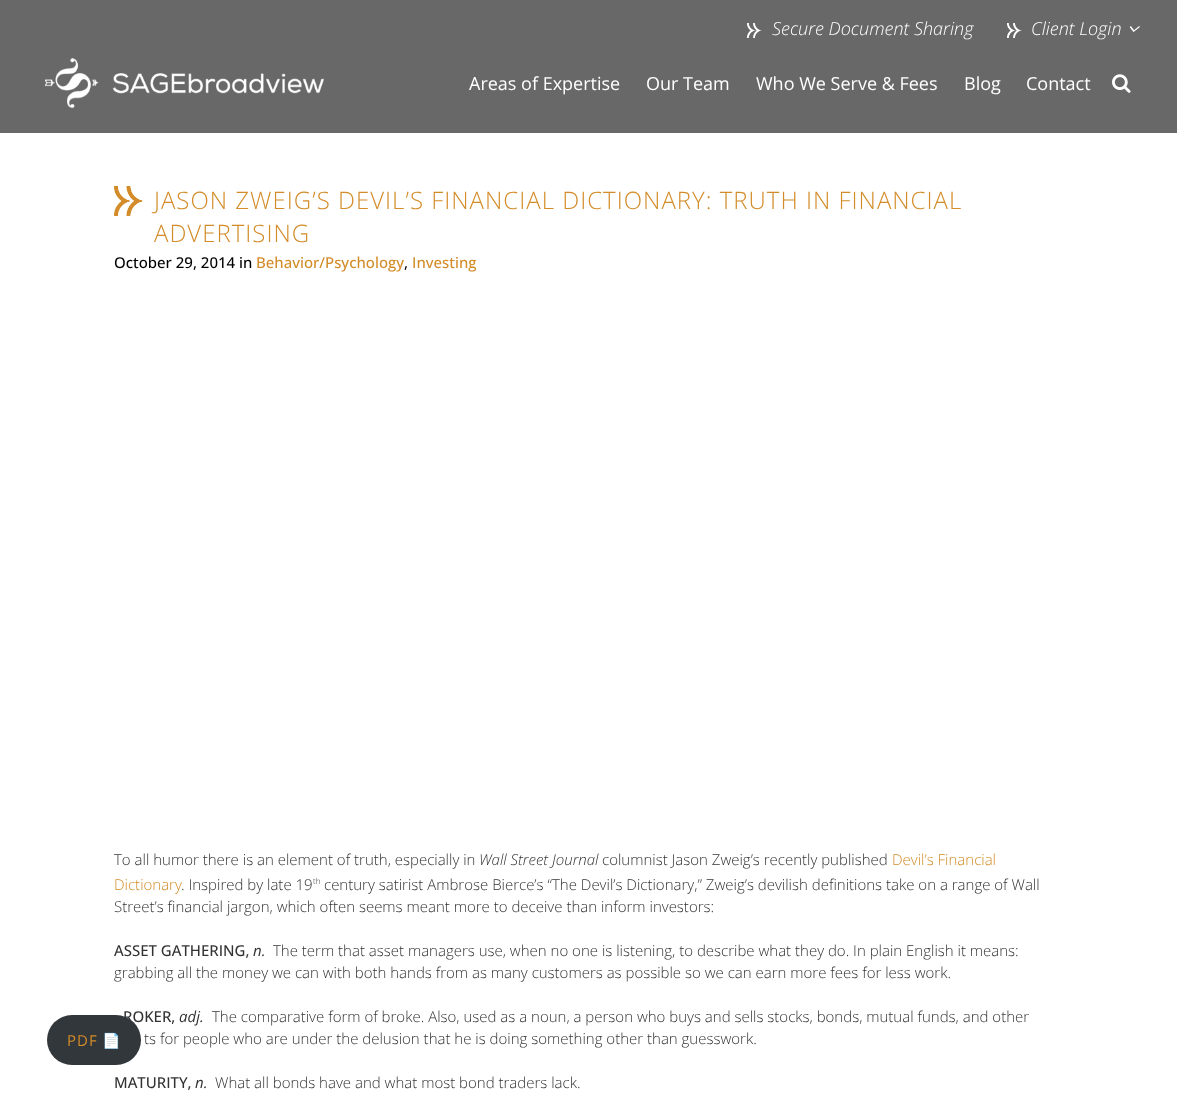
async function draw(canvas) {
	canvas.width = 1177;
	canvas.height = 1104;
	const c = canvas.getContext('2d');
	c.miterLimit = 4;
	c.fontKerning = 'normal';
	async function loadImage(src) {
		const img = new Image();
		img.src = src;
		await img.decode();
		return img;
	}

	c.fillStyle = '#fff';
	c.fillRect(0, 0, 1177, 1104);
	c.fillStyle = '#686868';
	c.fillRect(0, 0, 1177, 133);
	c.drawImage(await loadImage('img1.png'), 747, 23, 15, 15);
	c.font = 'italic 300 18px Open Sans';
	c.fillStyle = '#fff';
	c.fillText('Secure Document Sharing', 772, 35);
	c.drawImage(await loadImage('img1.png'), 1007, 23, 15, 15);
	c.fillText('Client Login', 1031, 35);
	c.drawImage(await loadImage('img2.png'), 1129, 26, 11, 6);
	c.drawImage(await loadImage('img3.png'), 45, 58, 279, 50);
	c.font = '18px Open Sans';
	for (const [text, x, y] of [
		['Areas of Expertise', 469, 90],
		['Our Team', 646, 90],
		['Who We Serve & Fees', 756, 90],
		['Blog', 964, 90],
		['Contact', 1026, 90],
	]) {
		c.fillText(text, x, y);
	}
	c.drawImage(await loadImage('img4.png'), 1112, 74, 19, 19);
	c.drawImage(await loadImage('img5.png'), 114, 186, 31, 30);
	c.letterSpacing = '1px';
	c.font = '300 24px Open Sans';
	c.fillStyle = '#d38c29';
	c.fillText('JASON ZWEIG’S DEVIL’S FINANCIAL DICTIONARY: TRUTH IN FINANCIAL', 154, 209);
	c.fillText('ADVERTISING', 154, 242);
	c.letterSpacing = '0px';
	c.font = '500 15px Open Sans';
	c.fillStyle = '#000';
	c.fillText('October 29, 2014 in', 114, 268);
	c.fillStyle = '#d38c29';
	c.fillText('Behavior/Psychology', 256, 268);
	c.fillStyle = '#000';
	c.fillText(',', 404, 268);
	c.fillStyle = '#d38c29';
	c.fillText('Investing', 412, 268);
	c.font = '300 15px Open Sans';
	c.fillStyle = '#333';
	c.fillText('To all humor there is an element of truth, especially in', 114, 865);
	c.font = 'italic 300 15px Open Sans';
	c.fillText('Wall Street Journal', 479, 865);
	c.font = '300 15px Open Sans';
	c.fillText('columnist Jason Zweig’s recently published', 602, 865);
	c.fillStyle = '#d38c29';
	c.fillText('Devil’s Financial', 892, 865);
	c.fillText('Dictionary', 114, 890);
	c.fillStyle = '#333';
	c.fillText('. Inspired by late 19', 181, 890);
	c.font = '300 8px Open Sans';
	c.fillText('th', 313, 884);
	c.font = '300 15px Open Sans';
	c.fillText('century satirist Ambrose Bierce’s “The Devil’s Dictionary,” Zweig’s devilish definitions take on a range of Wall', 324, 890);
	c.fillText('Street’s financial jargon, which often seems meant more to deceive than inform investors:', 114, 912);
	c.font = '500 15px Open Sans';
	c.fillText('ASSET GATHERING,', 114, 956);
	c.font = 'italic 15px Open Sans';
	c.fillText('n.', 253, 956);
	c.font = '300 15px Open Sans';
	c.fillText('The term that asset managers use, when no one is listening, to describe what they do. In plain English it means:', 273, 956);
	c.fillText('grabbing all the money we can with both hands from as many customers as possible so we can earn more fees for less work.', 114, 978);
	c.font = '500 15px Open Sans';
	c.fillText('ROKER,', 123, 1022);
	c.fillStyle = '#32373c';
	c.beginPath();
	c.roundRect(47, 1015, 94, 50, 25);
	c.fill();
	c.letterSpacing = '1px';
	c.font = '15px Open Sans';
	c.fillStyle = '#d38c29';
	c.fillText('PDF', 67, 1046);
	c.font = '15px Noto Color Emoji';
	c.fillText('📄', 102, 1046);
	c.letterSpacing = '0px';
	c.font = 'italic 15px Open Sans';
	c.fillStyle = '#333';
	c.fillText('adj.', 179, 1022);
	c.font = '300 15px Open Sans';
	c.fillText('The comparative form of broke. Also, used as a noun, a person who buys and sells stocks, bonds, mutual funds, and other', 212, 1022);
	c.fillText('ts for people who are under the delusion that he is doing something other than guesswork.', 144, 1044);
	c.font = '500 15px Open Sans';
	c.fillText('MATURITY,', 114, 1088);
	c.font = 'italic 15px Open Sans';
	c.fillText('n.', 195, 1088);
	c.font = '300 15px Open Sans';
	c.fillText('What all bonds have and what most bond traders lack.', 215, 1088);
}

draw(document.querySelector('canvas'));
